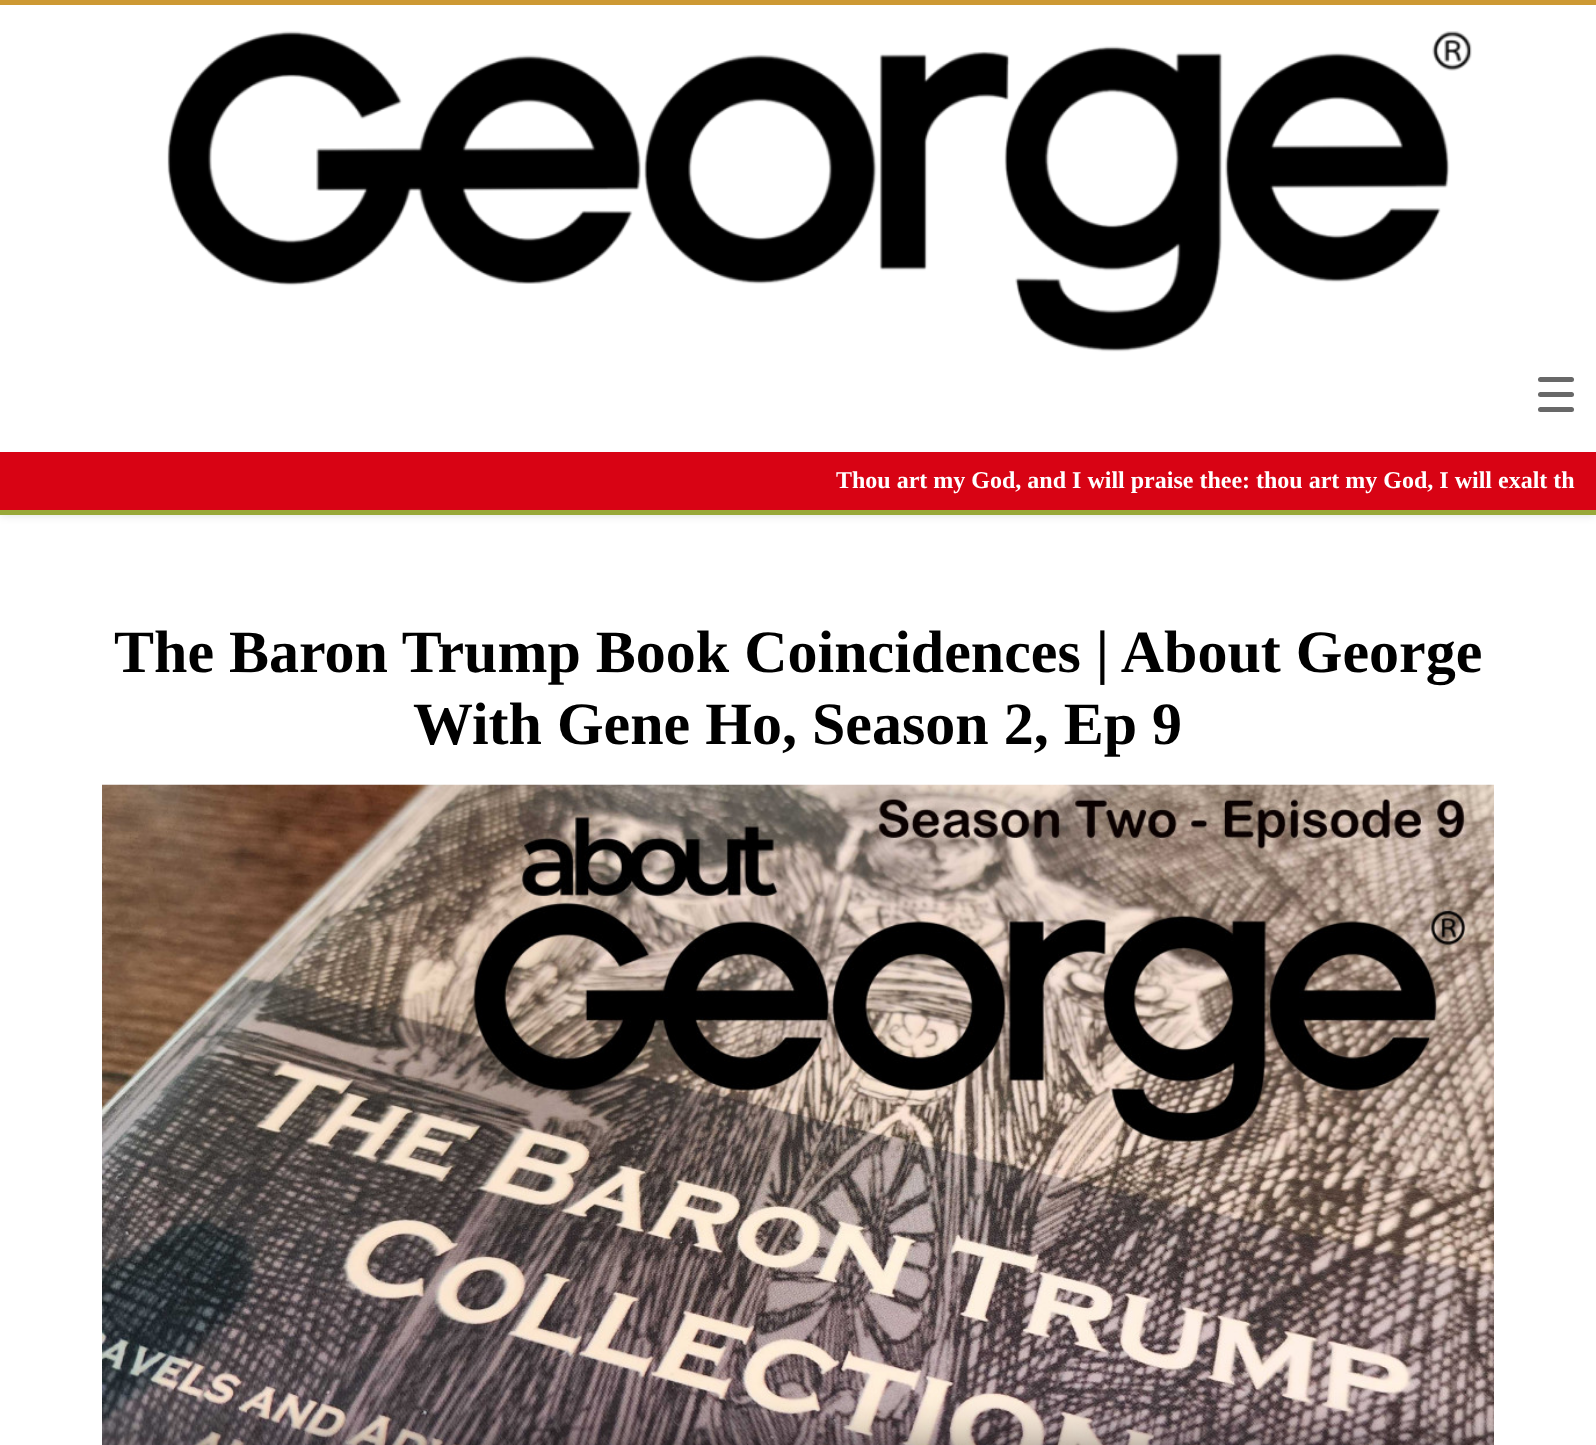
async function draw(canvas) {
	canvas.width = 1596;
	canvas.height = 1445;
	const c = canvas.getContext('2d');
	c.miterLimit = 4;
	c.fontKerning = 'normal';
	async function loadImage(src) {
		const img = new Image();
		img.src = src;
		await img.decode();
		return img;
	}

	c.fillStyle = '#fff';
	c.fillRect(0, 0, 1596, 1445);
	c.fillStyle = '#cd9933';
	c.fillRect(0, 0, 1596, 5);
	c.drawImage(await loadImage('img1.png'), 167, 31, 1305, 321);
	c.fillStyle = '#686868';
	c.beginPath();
	c.roundRect(1538, 392, 36, 5, 2.5);
	c.fill();
	c.beginPath();
	c.roundRect(1538, 377, 36, 5, 2.5);
	c.fill();
	c.beginPath();
	c.roundRect(1538, 407, 36, 5, 2.5);
	c.fill();
	c.fillStyle = '#0000001a';
	c.filter = 'blur(4.5px)';
	c.beginPath();
	c.rect(0, 458, 1596, 58);
	c.fill();
	c.filter = 'none';
	c.fillStyle = '#d80314';
	c.fillRect(0, 452, 1596, 58);
	c.font = 'bold 24px Liberation Serif';
	c.fillStyle = '#fff';
	c.fillText('Thou art my God, and I will praise thee: thou art my God, I will exalt th', 836, 488);
	c.fillStyle = '#99a839';
	c.fillRect(0, 510, 1596, 5);
	c.font = 'bold 60px Liberation Serif';
	c.fillStyle = '#000';
	c.fillText('The Baron Trump Book Coincidences | About George', 114, 672);
	c.fillText('With Gene Ho, Season 2, Ep 9', 413, 744);
	c.drawImage(await loadImage('img2.png'), 102, 784, 1392, 661);
}

draw(document.querySelector('canvas'));
